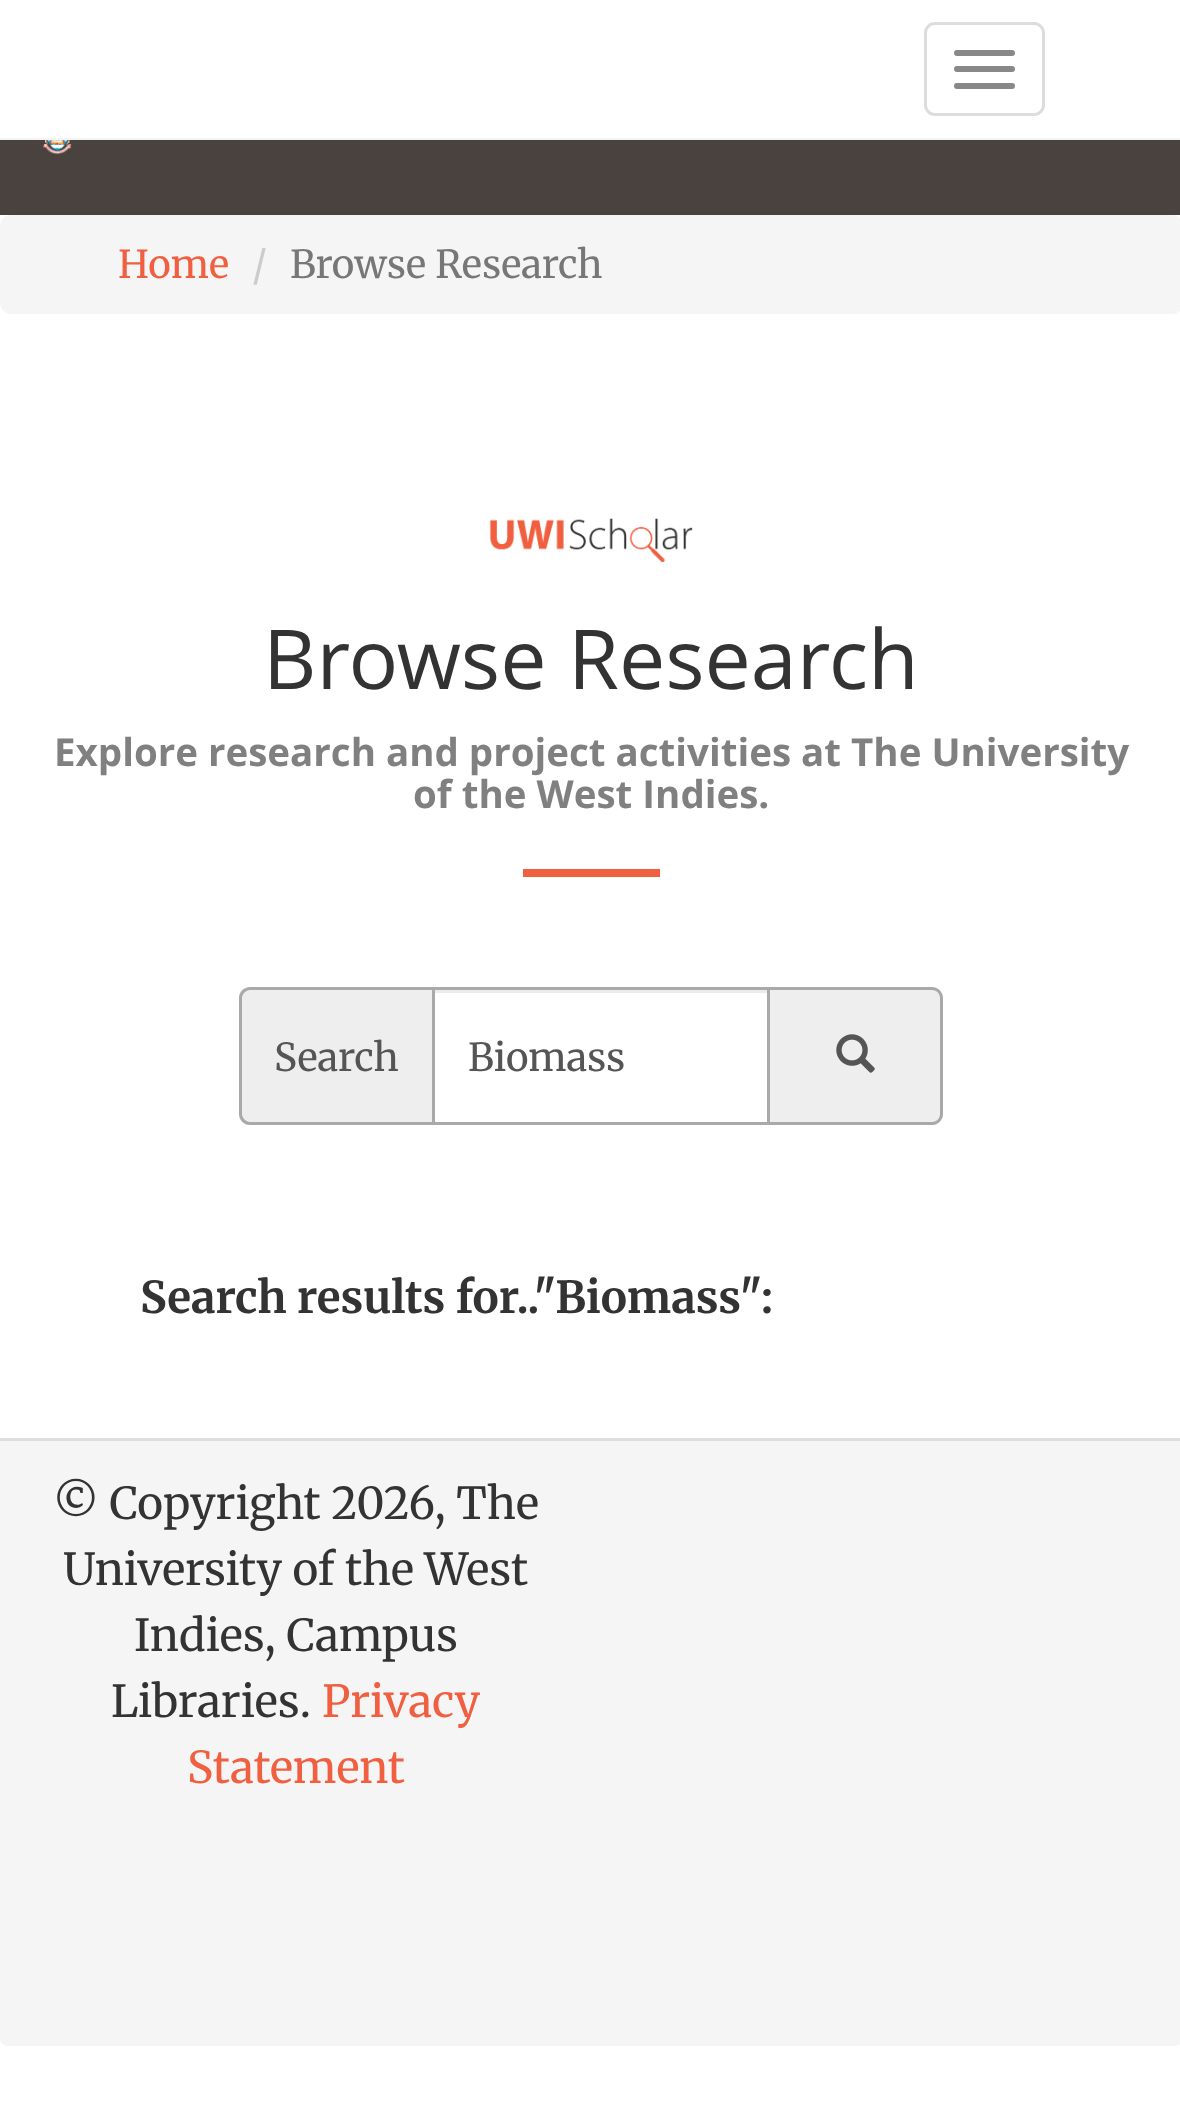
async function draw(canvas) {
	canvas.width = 1180;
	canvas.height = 2111;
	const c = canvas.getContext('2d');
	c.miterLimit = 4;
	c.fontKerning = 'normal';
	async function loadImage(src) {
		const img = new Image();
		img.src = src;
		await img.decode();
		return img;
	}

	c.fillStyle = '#fff';
	c.fillRect(0, 0, 1180, 2111);
	c.fillStyle = '#4a423f';
	c.fillRect(0, 140, 1180, 75);
	c.drawImage(await loadImage('img1.png'), 43, 140, 29, 15);
	c.fillStyle = '#2222220d';
	c.fillRect(0, 138, 1180, 3);
	c.beginPath();
	c.roundRect(925.5, 23.5, 118, 91, 9.5);
	c.strokeStyle = '#ddd';
	c.lineWidth = 3;
	c.stroke();
	c.fillStyle = '#888';
	c.beginPath();
	c.roundRect(954, 50, 61, 6, 3);
	c.fill();
	c.beginPath();
	c.roundRect(954, 66, 61, 6, 3);
	c.fill();
	c.beginPath();
	c.roundRect(954, 83, 61, 6, 3);
	c.fill();
	c.fillStyle = '#f5f5f5';
	c.beginPath();
	c.roundRect(0, 215, 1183, 99, 11);
	c.fill();
	c.font = '38.5px Merriweather';
	c.fillStyle = '#f05f40';
	c.fillText('Home', 118, 278);
	c.fillStyle = '#ccc';
	c.fillText('/', 252, 278);
	c.fillStyle = '#777';
	c.fillText('Browse Research', 290, 278);
	c.drawImage(await loadImage('img2.png'), 489, 518, 204, 45);
	c.font = '82.5px Open Sans';
	c.fillStyle = '#333';
	c.fillText('Browse Research', 263, 689);
	c.font = 'bold 38.5px Open Sans';
	c.fillStyle = '#808080';
	c.fillText('Explore research and project activities at The University', 54, 766);
	c.fillText('of the West Indies.', 413, 808);
	c.fillStyle = '#f05f40';
	c.fillRect(523, 869, 137, 8);
	c.fillStyle = '#eee';
	c.beginPath();
	c.roundRect(239, 987, 193, 138, [11, 0, 0, 11]);
	c.fill();
	c.fillStyle = '#a9a9a9';
	c.beginPath();
	c.moveTo(250, 987);
	c.lineTo(432, 987);
	c.lineTo(432, 1125);
	c.lineTo(250, 1125);
	c.bezierCurveTo(244, 1125, 239, 1120, 239, 1114);
	c.lineTo(239, 998);
	c.bezierCurveTo(239, 992, 244, 987, 250, 987);
	c.closePath();
	c.moveTo(250, 990);
	c.lineTo(432, 990);
	c.lineTo(432, 1122);
	c.lineTo(250, 1122);
	c.bezierCurveTo(246, 1122, 242, 1118, 242, 1114);
	c.lineTo(242, 998);
	c.bezierCurveTo(242, 994, 246, 990, 250, 990);
	c.closePath();
	c.fill('evenodd');
	c.font = '38.5px Merriweather';
	c.fillStyle = '#555';
	c.fillText('Search', 274, 1071);
	c.fillStyle = '#ececec';
	c.fillRect(435, 990, 332, 3);
	c.strokeStyle = '#a9a9a9';
	c.strokeRect(433.5, 988.5, 335, 135);
	c.fillStyle = '#555';
	c.fillText('Biomass', 468, 1071);
	c.fillStyle = '#eee';
	c.beginPath();
	c.roundRect(770, 987, 173, 138, [0, 11, 11, 0]);
	c.fill();
	c.fillStyle = '#a9a9a9';
	c.beginPath();
	c.moveTo(770, 987);
	c.lineTo(932, 987);
	c.bezierCurveTo(938, 987, 943, 992, 943, 998);
	c.lineTo(943, 1114);
	c.bezierCurveTo(943, 1120, 938, 1125, 932, 1125);
	c.lineTo(770, 1125);
	c.closePath();
	c.moveTo(770, 990);
	c.lineTo(932, 990);
	c.bezierCurveTo(937, 990, 940, 994, 940, 998);
	c.lineTo(940, 1114);
	c.bezierCurveTo(940, 1118, 937, 1122, 932, 1122);
	c.lineTo(770, 1122);
	c.closePath();
	c.fill('evenodd');
	c.drawImage(await loadImage('img3.png'), 836, 1034, 39, 39);
	c.font = 'bold 44px Merriweather';
	c.fillStyle = '#333';
	c.fillText('Search results for.."Biomass":', 140, 1313);
	c.fillStyle = '#f5f5f5';
	c.beginPath();
	c.moveTo(0, 1438);
	c.lineTo(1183, 1438);
	c.lineTo(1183, 2038);
	c.bezierCurveTo(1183, 2042.5, 1179.5, 2046, 1175, 2046);
	c.lineTo(8, 2046);
	c.bezierCurveTo(3.5, 2046, 0, 2042.5, 0, 2038);
	c.closePath();
	c.fill();
	c.fillStyle = '#ddd';
	c.fillRect(0, 1438, 1180, 3);
	c.font = '44px Merriweather';
	c.fillStyle = '#333';
	for (const [text, x, y] of [
		['© Copyright 2026, The', 53, 1519],
		['University of the West', 63, 1585],
		['Indies, Campus', 134, 1651],
		['Libraries.', 111, 1717],
	]) {
		c.fillText(text, x, y);
	}
	c.fillStyle = '#f05f40';
	c.fillText('Privacy', 322, 1717);
	c.fillText('Statement', 187, 1783);
}

draw(document.querySelector('canvas'));
